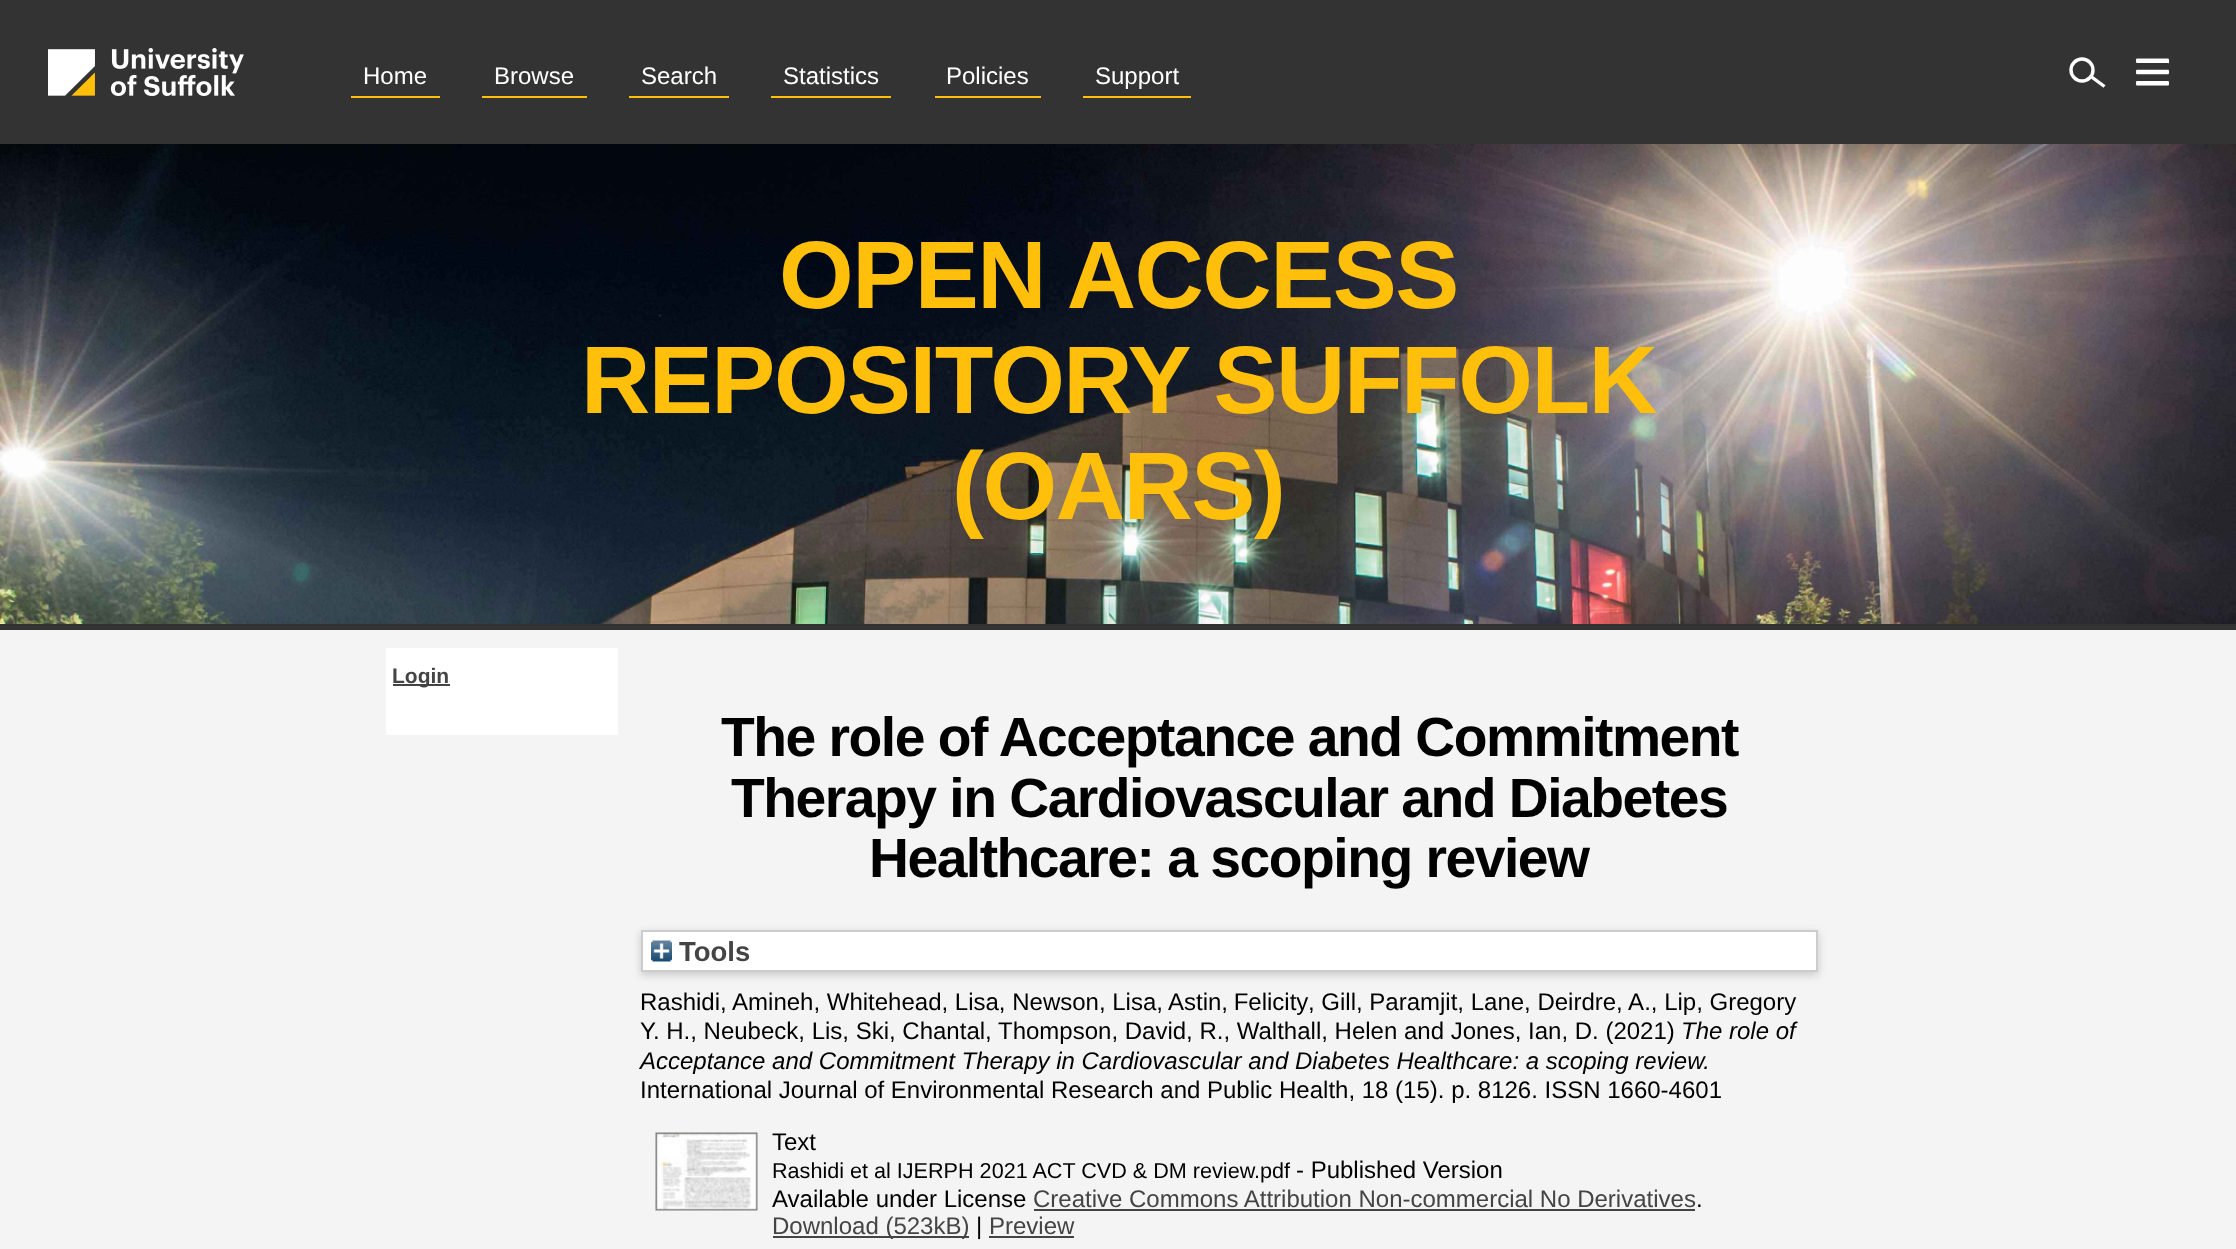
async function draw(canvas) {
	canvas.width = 2236;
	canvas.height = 1249;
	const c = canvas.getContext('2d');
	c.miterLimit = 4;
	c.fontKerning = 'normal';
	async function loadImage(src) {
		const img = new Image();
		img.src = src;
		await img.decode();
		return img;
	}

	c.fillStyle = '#f4f4f4';
	c.fillRect(0, 0, 2236, 1249);
	c.fillStyle = '#333';
	c.fillRect(0, 0, 2236, 144);
	c.drawImage(await loadImage('img1.png'), 48, 48, 196, 48);
	c.fillStyle = '#ffbf0b';
	c.fillRect(351, 96, 89, 2);
	c.font = '24px Liberation Sans';
	c.fillStyle = '#fff';
	c.fillText('Home', 363, 84);
	c.fillStyle = '#ffbf0b';
	c.fillRect(482, 96, 105, 2);
	c.fillStyle = '#fff';
	c.fillText('Browse', 494, 84);
	c.fillStyle = '#ffbf0b';
	c.fillRect(629, 96, 100, 2);
	c.fillStyle = '#fff';
	c.fillText('Search', 641, 84);
	c.fillStyle = '#ffbf0b';
	c.fillRect(771, 96, 120, 2);
	c.fillStyle = '#fff';
	c.fillText('Statistics', 783, 84);
	c.fillStyle = '#ffbf0b';
	c.fillRect(935, 96, 106, 2);
	c.fillStyle = '#fff';
	c.fillText('Policies', 946, 84);
	c.fillStyle = '#ffbf0b';
	c.fillRect(1083, 96, 108, 2);
	c.fillStyle = '#fff';
	c.fillText('Support', 1095, 84);
	c.beginPath();
	c.arc(2082, 70, 11, 0, 2 * Math.PI);
	c.strokeStyle = '#fff';
	c.lineWidth = 3.4;
	c.stroke();
	c.beginPath();
	c.moveTo(2091, 76.5);
	c.lineTo(2104.5, 86.5);
	c.stroke();
	c.drawImage(await loadImage('img2.png'), 2135, 58, 35, 28);
	c.drawImage(await loadImage('img3.png'), 0, 144, 2236, 480);
	c.fillStyle = '#333';
	c.fillRect(0, 624, 2236, 6);
	c.letterSpacing = '-1.5px';
	c.font = 'bold 96px Liberation Sans';
	c.fillStyle = '#ffbf0b';
	for (const [text, x, y] of [
		['OPEN ACCESS', 779, 308],
		['REPOSITORY SUFFOLK', 581, 413],
		['(OARS)', 952, 519],
	]) {
		c.fillText(text, x, y);
	}
	c.fillStyle = '#fff';
	c.fillRect(386, 648, 232, 87);
	c.fillStyle = '#444';
	c.fillRect(393, 684, 57, 2);
	c.letterSpacing = '0px';
	c.font = 'bold 21px Liberation Sans';
	c.fillText('Login', 392, 683);
	c.letterSpacing = '-1.5px';
	c.font = 'bold 55.25px Liberation Sans';
	c.fillStyle = '#000';
	for (const [text, x, y] of [
		['The role of Acceptance and Commitment', 721, 756],
		['Therapy in Cardiovascular and Diabetes', 731, 817],
		['Healthcare: a scoping review', 869, 877],
	]) {
		c.fillText(text, x, y);
	}
	c.fillStyle = '#6464644d';
	c.filter = 'blur(4.5px)';
	c.beginPath();
	c.rect(641, 933, 1177, 42);
	c.fill();
	c.filter = 'none';
	c.fillStyle = '#fff';
	c.beginPath();
	c.rect(642, 931, 1175, 40);
	c.fill();
	c.strokeStyle = '#ccc';
	c.lineWidth = 2;
	c.stroke();
	c.drawImage(await loadImage('img4.png'), 651, 940, 21, 22);
	c.letterSpacing = '0px';
	c.font = 'bold 27.5px Liberation Sans';
	c.fillStyle = '#444';
	c.fillText('Tools', 679, 961);
	c.font = '24px Liberation Sans';
	c.fillStyle = '#000';
	c.fillText('Rashidi, Amineh, Whitehead, Lisa, Newson, Lisa,', 640, 1010);
	c.wordSpacing = '-1px';
	c.fillText('Astin, Felicity', 1168, 1010);
	c.wordSpacing = '0px';
	for (const [text, x, y] of [
		[', Gill, Paramjit, Lane, Deirdre, A., Lip, Gregory', 1308, 1010],
		['Y. H., Neubeck, Lis, Ski, Chantal,', 640, 1039],
		['Thompson, David, R., Walthall, Helen and Jones, Ian, D. (2021)', 998, 1039],
	]) {
		c.fillText(text, x, y);
	}
	c.font = 'italic 24px Liberation Sans';
	c.fillText('The role of', 1681, 1039);
	c.fillText('Acceptance and Commitment Therapy in Cardiovascular and Diabetes Healthcare: a scoping review.', 640, 1069);
	c.font = '24px Liberation Sans';
	c.fillText('International Journal of Environmental Research and Public Health, 18 (15). p. 8126. ISSN 1660-4601', 640, 1098);
	c.drawImage(await loadImage('img5.png'), 655, 1132, 103, 79);
	c.fillText('Text', 772, 1150);
	c.font = '21.6px Liberation Sans';
	c.fillText('Rashidi et al IJERPH 2021 ACT CVD & DM review.pdf', 772, 1178);
	c.font = '24px Liberation Sans';
	c.fillText('- Published Version', 1296, 1178);
	c.fillText('Available under License', 772, 1207);
	c.fillStyle = '#444';
	c.fillText('Creative Commons Attribution Non-commercial No Derivatives', 1033, 1207);
	c.fillStyle = '#000';
	c.fillText('.', 1696, 1207);
	c.fillStyle = '#444';
	c.fillRect(1034, 1209, 661, 2);
	c.fillRect(773, 1236, 196, 2);
	c.fillText('Download (523kB)', 772, 1234);
	c.fillStyle = '#000';
	c.fillText('|', 976, 1234);
	c.fillStyle = '#444';
	c.fillText('Preview', 989, 1234);
	c.fillRect(989, 1236, 85, 2);
}

draw(document.querySelector('canvas'));
